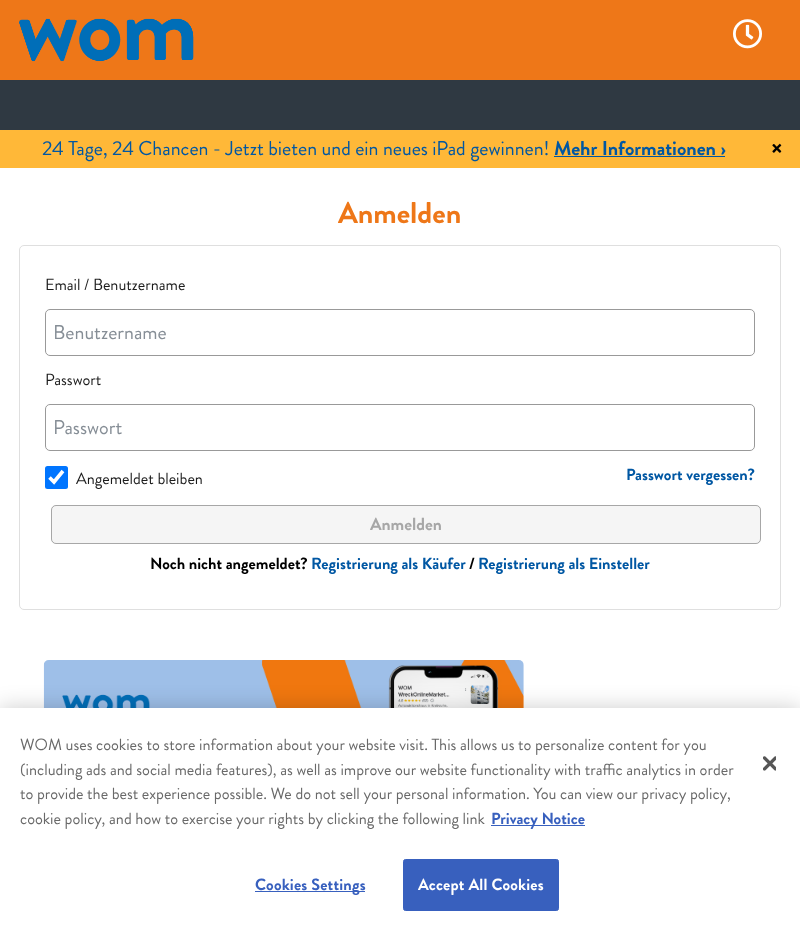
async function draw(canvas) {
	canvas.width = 800;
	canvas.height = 931;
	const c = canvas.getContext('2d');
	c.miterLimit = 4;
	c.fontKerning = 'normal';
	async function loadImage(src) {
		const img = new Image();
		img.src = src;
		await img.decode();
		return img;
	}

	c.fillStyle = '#fff';
	c.fillRect(0, 0, 800, 931);
	c.fillStyle = '#ee7718';
	c.fillRect(0, 0, 800, 80);
	c.drawImage(await loadImage('img1.png'), 19, 18, 175, 44);
	c.drawImage(await loadImage('img2.png'), 733, 19, 29, 30);
	c.fillStyle = '#2f3942';
	c.fillRect(0, 80, 800, 50);
	c.fillStyle = '#ffb838';
	c.fillRect(0, 130, 800, 38);
	c.font = '20px Brandon Grotesque';
	c.fillStyle = '#0057a3';
	c.fillText('24 Tage, 24 Chancen - Jetzt bieten und ein neues iPad gewinnen!', 42, 155);
	c.fillRect(554, 156, 171, 1);
	c.font = 'bold 20px Brandon Grotesque';
	c.fillText('Mehr Informationen ›', 554, 155);
	c.font = 'bold 25px Brandon Grotesque';
	c.fillStyle = '#000';
	c.fillText('×', 771, 157);
	c.font = 'bold 30px Brandon Grotesque';
	c.fillStyle = '#ee7718';
	c.fillText('Anmelden', 338, 223);
	c.beginPath();
	c.roundRect(19.5, 245.5, 761, 364, 4.5);
	c.strokeStyle = '#dfdfdf';
	c.stroke();
	c.font = '16.25px Brandon Grotesque';
	c.fillStyle = '#1d1d1d';
	c.fillText('Email / Benutzername', 45, 290);
	c.beginPath();
	c.roundRect(45.5, 309.5, 709, 46, 4.5);
	c.strokeStyle = '#999';
	c.stroke();
	c.font = '20px Brandon Grotesque';
	c.fillStyle = '#868e96';
	c.fillText('Benutzername', 53, 339);
	c.font = '16.25px Brandon Grotesque';
	c.fillStyle = '#1d1d1d';
	c.fillText('Passwort', 45, 385);
	c.beginPath();
	c.roundRect(45.5, 404.5, 709, 46, 4.5);
	c.stroke();
	c.font = '20px Brandon Grotesque';
	c.fillStyle = '#868e96';
	c.fillText('Passwort', 53, 434);
	c.fillStyle = '#0075ff';
	c.beginPath();
	c.roundRect(45, 466, 23, 23, 2.5);
	c.fill();
	c.beginPath();
	c.moveTo(49.5, 477.5);
	c.lineTo(54, 482);
	c.lineTo(63, 471);
	c.strokeStyle = '#fff';
	c.lineWidth = 3.6;
	c.stroke();
	c.font = '16.25px Brandon Grotesque';
	c.fillStyle = '#1d1d1d';
	c.fillText('Angemeldet bleiben', 76, 484);
	c.font = 'bold 16.25px Brandon Grotesque';
	c.fillStyle = '#0057a3';
	c.fillText('Passwort vergessen?', 626, 480);
	c.fillStyle = '#f5f5f5';
	c.beginPath();
	c.roundRect(51, 505, 710, 39, 5);
	c.fill();
	c.beginPath();
	c.roundRect(51.5, 505.5, 709, 38, 4.5);
	c.strokeStyle = '#59595980';
	c.lineWidth = 1;
	c.stroke();
	c.font = 'bold 17.5px Brandon Grotesque';
	c.fillStyle = '#a7a7a7';
	c.fillText('Anmelden', 370, 530);
	c.font = 'bold 16.25px Brandon Grotesque';
	c.fillStyle = '#000';
	c.fillText('Noch nicht angemeldet?', 150, 569);
	c.fillStyle = '#0057a3';
	c.fillText('Registrierung als Käufer', 311, 569);
	c.fillStyle = '#000';
	c.fillText('/', 469, 569);
	c.fillStyle = '#0057a3';
	c.fillText('Registrierung als Einsteller', 478, 569);
	c.drawImage(await loadImage('img3.png'), 43, 660, 481, 48);
	c.fillStyle = '#00000033';
	c.filter = 'blur(11px)';
	c.beginPath();
	c.rect(0, 708, 800, 223);
	c.fill();
	c.filter = 'none';
	c.fillStyle = '#fff';
	c.fillRect(0, 708, 800, 223);
	c.font = '16.25px Brandon Grotesque';
	c.fillStyle = '#696969';
	for (const [text, x, y] of [
		['WOM uses cookies to store information about your website visit. This allows us to personalize content for you', 20, 750],
		['(including ads and social media features), as well as improve our website functionality with traffic analytics in order', 20, 775],
		['to provide the best experience possible. We do not sell your personal information. You can view our privacy policy,', 20, 799],
		['cookie policy, and how to exercise your rights by clicking the following link', 20, 824],
	]) {
		c.fillText(text, x, y);
	}
	c.fillStyle = '#3860be';
	c.fillRect(491, 825, 94, 1);
	c.font = 'bold 16.25px Brandon Grotesque';
	c.fillText('Privacy Notice', 491, 824);
	c.drawImage(await loadImage('img4.png'), 763, 756, 13, 15);
	c.fillRect(255, 891, 110, 1);
	c.letterSpacing = '0.2px';
	c.fillText('Cookies Settings', 255, 890);
	c.beginPath();
	c.roundRect(403.5, 859.5, 155, 51, 2);
	c.fill();
	c.strokeStyle = '#3860be';
	c.stroke();
	c.fillStyle = '#fff';
	c.fillText('Accept All Cookies', 418, 890);
}

draw(document.querySelector('canvas'));
